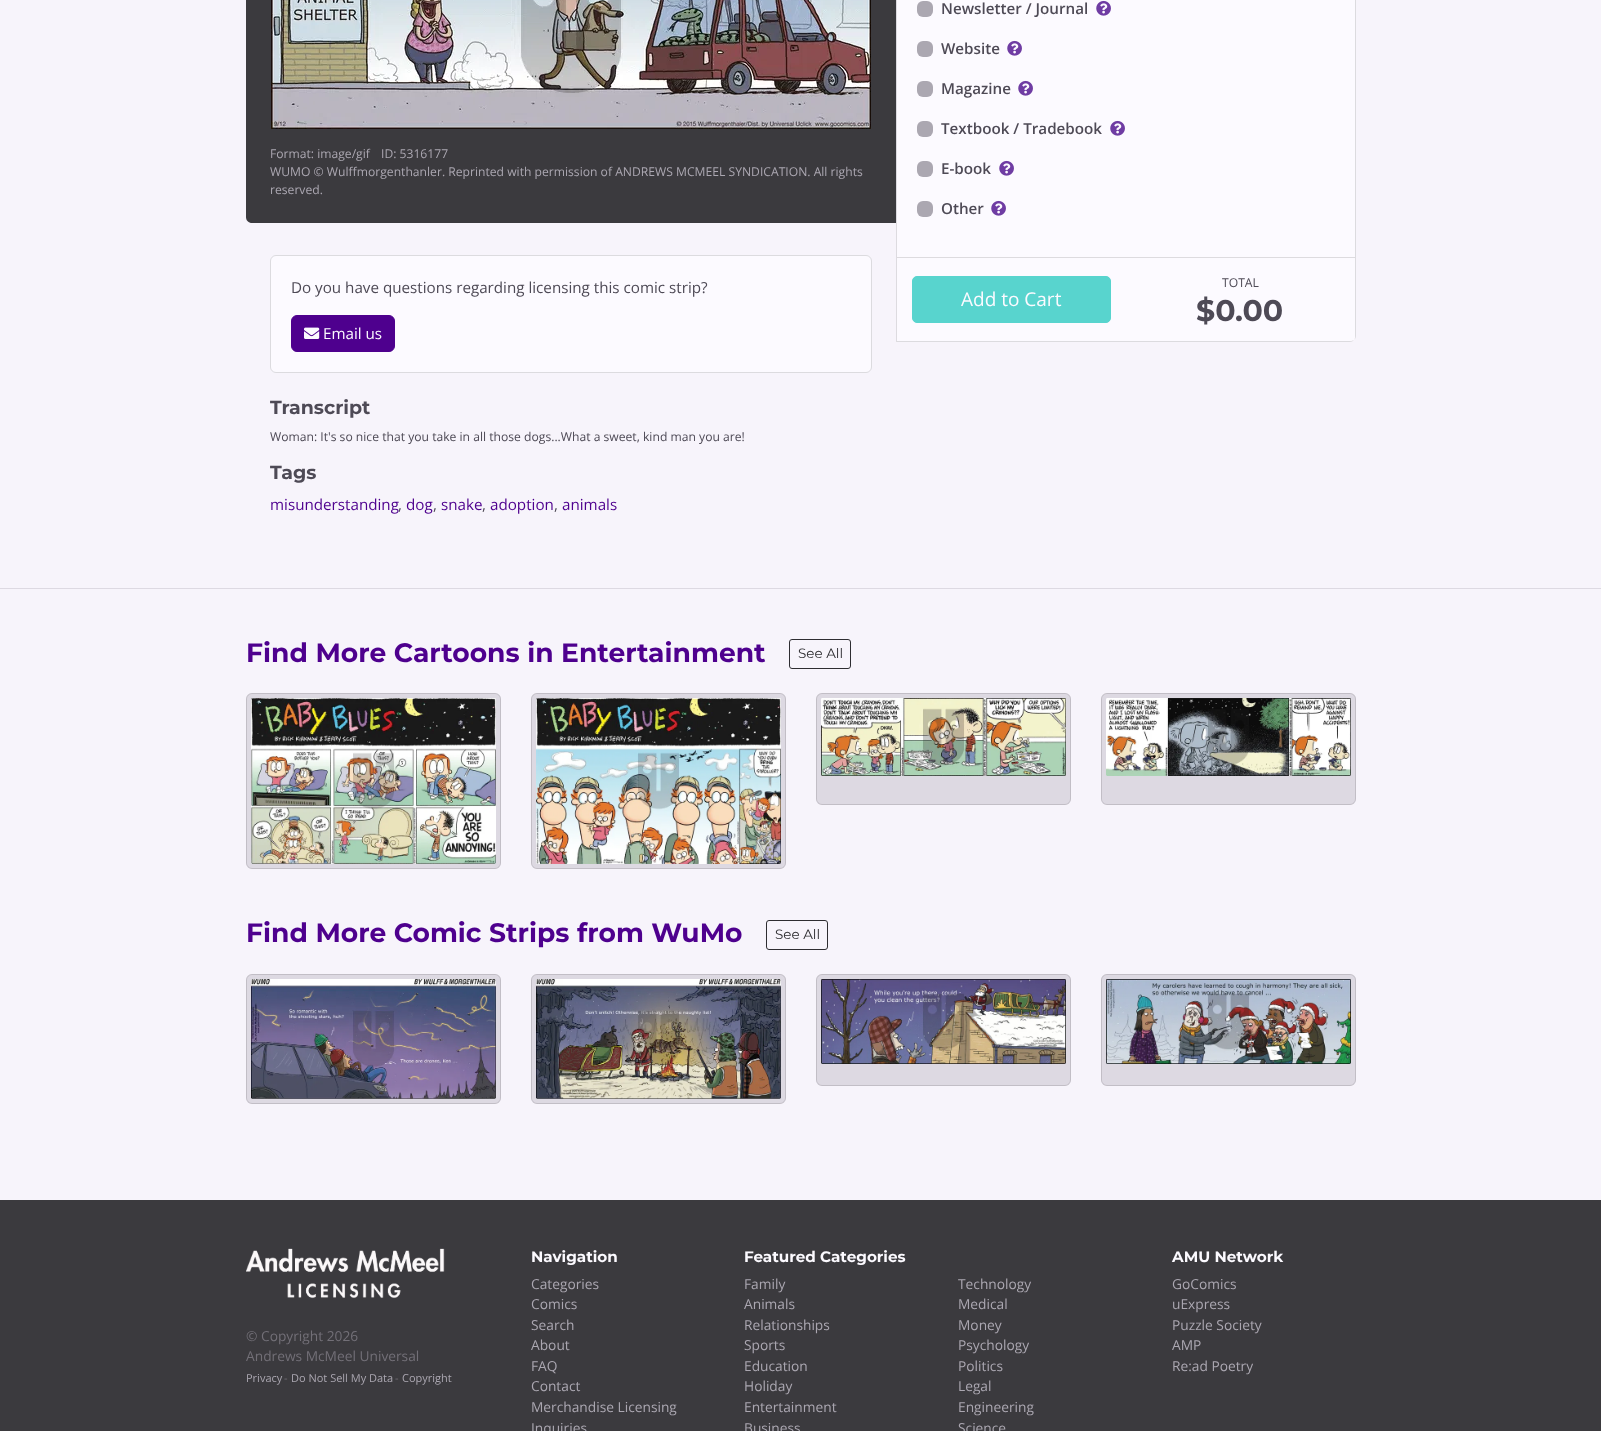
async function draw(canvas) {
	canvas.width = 1601;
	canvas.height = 1431;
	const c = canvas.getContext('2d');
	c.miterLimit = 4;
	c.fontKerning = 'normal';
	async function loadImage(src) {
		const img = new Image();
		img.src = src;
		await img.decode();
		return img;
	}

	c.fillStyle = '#f7f4fb';
	c.fillRect(0, 0, 1601, 1431);
	c.fillStyle = '#3b3a3e';
	c.beginPath();
	c.moveTo(252, -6);
	c.lineTo(896, -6);
	c.lineTo(896, 223);
	c.lineTo(252, 223);
	c.bezierCurveTo(248.5, 223, 246, 220.5, 246, 217);
	c.lineTo(246, 0);
	c.bezierCurveTo(246, -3.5, 248.5, -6, 252, -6);
	c.closePath();
	c.fill();
	c.drawImage(await loadImage('img1.png'), 271, 0, 600, 129);
	c.font = '12.15px Open Sans';
	c.fillStyle = '#aba7b1';
	for (const [text, x, y] of [
		['Format: image/gif', 270, 158],
		['ID: 5316177', 381, 158],
		['WUMO © Wulffmorgenthanler. Reprinted with permission of ANDREWS MCMEEL SYNDICATION. All rights', 270, 176],
		['reserved.', 270, 194],
	]) {
		c.fillText(text, x, y);
	}
	c.fillStyle = '#fcfaff';
	c.beginPath();
	c.roundRect(270.5, 255.5, 601, 117, 5.5);
	c.fill();
	c.strokeStyle = '#dcdbdf';
	c.stroke();
	c.font = '15.2px Open Sans';
	c.fillStyle = '#4e4a56';
	c.fillText('Do you have questions regarding licensing this comic strip?', 291, 293);
	c.fillStyle = '#4e008e';
	c.beginPath();
	c.roundRect(291.5, 315.5, 103, 36, 5.5);
	c.fill();
	c.strokeStyle = '#4e008e';
	c.stroke();
	c.drawImage(await loadImage('img2.png'), 304, 327, 16, 12);
	c.fillStyle = '#fcfaff';
	c.fillText('Email us', 323, 339);
	c.font = 'bold 19px Montserrat';
	c.fillStyle = '#4e4a56';
	c.fillText('Transcript', 270, 414);
	c.font = '12.15px Open Sans';
	c.fillText('Woman: It\'s so nice that you take in all those dogs...What a sweet, kind man you are!', 270, 441);
	c.font = 'bold 19px Montserrat';
	c.fillText('Tags', 270, 479);
	c.font = '15.2px Open Sans';
	c.fillStyle = '#4e008e';
	c.fillText('misunderstanding', 270, 510);
	c.fillStyle = '#4e4a56';
	c.fillText(',', 398, 510);
	c.fillStyle = '#4e008e';
	c.fillText('dog', 406, 510);
	c.fillStyle = '#4e4a56';
	c.fillText(',', 433, 510);
	c.fillStyle = '#4e008e';
	c.fillText('snake', 441, 510);
	c.fillStyle = '#4e4a56';
	c.fillText(',', 482, 510);
	c.fillStyle = '#4e008e';
	c.fillText('adoption', 490, 510);
	c.fillStyle = '#4e4a56';
	c.fillText(',', 554, 510);
	c.fillStyle = '#4e008e';
	c.fillText('animals', 562, 510);
	c.fillStyle = '#fcfaff';
	c.beginPath();
	c.moveTo(896, -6);
	c.lineTo(1350, -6);
	c.bezierCurveTo(1353.5, -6, 1356, -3.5, 1356, 0);
	c.lineTo(1356, 336);
	c.bezierCurveTo(1356, 339.5, 1353.5, 342, 1350, 342);
	c.lineTo(896, 342);
	c.closePath();
	c.fill();
	c.fillStyle = '#dcdbdf';
	c.beginPath();
	c.moveTo(1356, 336);
	c.lineTo(1356, -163);
	c.lineTo(1355, -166);
	c.lineTo(1355, -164);
	c.lineTo(1355, 336);
	c.bezierCurveTo(1355, 337, 1355, 339, 1354, 340);
	c.bezierCurveTo(1355, 339, 1356, 338, 1356, 336);
	c.closePath();
	c.fill();
	c.beginPath();
	c.moveTo(1350, 342);
	c.bezierCurveTo(1352, 342, 1353, 341, 1354, 340);
	c.bezierCurveTo(1353, 340, 1352, 341, 1350, 341);
	c.lineTo(897, 341);
	c.lineTo(896, 342);
	c.closePath();
	c.fill();
	c.fillStyle = '#0000001f';
	c.beginPath();
	c.moveTo(896, -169);
	c.lineTo(896, 342);
	c.lineTo(897, 341);
	c.lineTo(897, -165);
	c.closePath();
	c.fill();
	c.fillStyle = '#aba7b1';
	c.beginPath();
	c.roundRect(917, 1, 16, 16, 6);
	c.fill();
	c.font = '600 15.2px Open Sans';
	c.fillStyle = '#4e4a56';
	c.fillText('Newsletter / Journal', 941, 14);
	c.drawImage(await loadImage('img3.png'), 1096, 0, 15, 16);
	c.fillStyle = '#aba7b1';
	c.beginPath();
	c.roundRect(917, 41, 16, 16, 6);
	c.fill();
	c.fillStyle = '#4e4a56';
	c.fillText('Website', 941, 54);
	c.drawImage(await loadImage('img3.png'), 1007, 40, 15, 16);
	c.fillStyle = '#aba7b1';
	c.beginPath();
	c.roundRect(917, 81, 16, 16, 6);
	c.fill();
	c.fillStyle = '#4e4a56';
	c.fillText('Magazine', 941, 94);
	c.drawImage(await loadImage('img3.png'), 1018, 80, 15, 16);
	c.fillStyle = '#aba7b1';
	c.beginPath();
	c.roundRect(917, 121, 16, 16, 6);
	c.fill();
	c.fillStyle = '#4e4a56';
	c.fillText('Textbook / Tradebook', 941, 134);
	c.drawImage(await loadImage('img3.png'), 1110, 120, 15, 16);
	c.fillStyle = '#aba7b1';
	c.beginPath();
	c.roundRect(917, 161, 16, 16, 6);
	c.fill();
	c.fillStyle = '#4e4a56';
	c.fillText('E-book', 941, 174);
	c.drawImage(await loadImage('img3.png'), 999, 160, 15, 16);
	c.fillStyle = '#aba7b1';
	c.beginPath();
	c.roundRect(917, 201, 16, 16, 6);
	c.fill();
	c.fillStyle = '#4e4a56';
	c.fillText('Other', 941, 214);
	c.drawImage(await loadImage('img3.png'), 991, 200, 15, 16);
	c.fillStyle = '#fcfaff';
	c.beginPath();
	c.roundRect(897, 257, 458, 84, [0, 0, 5, 5]);
	c.fill();
	c.fillStyle = '#dddbdf';
	c.fillRect(897, 257, 458, 1);
	c.fillStyle = '#58d4ce';
	c.beginPath();
	c.roundRect(912.5, 276.5, 198, 46, 4.5);
	c.fill();
	c.strokeStyle = '#58d4ce';
	c.stroke();
	c.font = '19px Open Sans';
	c.fillStyle = '#fcfaff';
	c.fillText('Add to Cart', 961, 306);
	c.font = '12.15px Open Sans';
	c.fillStyle = '#4e4a56';
	c.fillText('TOTAL', 1222, 287);
	c.font = 'bold 30px Montserrat';
	c.fillText('$0', 1196, 321);
	c.fillText('.00', 1235, 321);
	c.fillStyle = '#ddd9e2';
	c.fillRect(0, 588, 1601, 1);
	c.font = 'bold 26.6px Montserrat';
	c.fillStyle = '#4e008e';
	c.fillText('Find More Cartoons in Entertainment', 246, 662);
	c.beginPath();
	c.roundRect(789.5, 639.5, 61, 29, 2.5);
	c.strokeStyle = '#2e2d31';
	c.stroke();
	c.font = '13.5px Montserrat';
	c.fillStyle = '#2e2d31';
	c.fillText('See All', 798, 658);
	c.fillStyle = '#ddd9e2';
	c.beginPath();
	c.roundRect(246, 693, 255, 176, 6);
	c.fill();
	c.beginPath();
	c.roundRect(246.5, 693.5, 254, 175, 5.5);
	c.strokeStyle = '#0000001f';
	c.stroke();
	c.drawImage(await loadImage('img4.png'), 251, 698, 245, 166);
	c.beginPath();
	c.roundRect(531, 693, 255, 176, 6);
	c.fill();
	c.beginPath();
	c.roundRect(531.5, 693.5, 254, 175, 5.5);
	c.stroke();
	c.drawImage(await loadImage('img5.png'), 536, 698, 245, 166);
	c.beginPath();
	c.roundRect(816, 693, 255, 112, 6);
	c.fill();
	c.beginPath();
	c.roundRect(816.5, 693.5, 254, 111, 5.5);
	c.stroke();
	c.drawImage(await loadImage('img6.png'), 821, 698, 245, 78);
	c.beginPath();
	c.roundRect(1101, 693, 255, 112, 6);
	c.fill();
	c.beginPath();
	c.roundRect(1101.5, 693.5, 254, 111, 5.5);
	c.stroke();
	c.drawImage(await loadImage('img7.png'), 1106, 698, 245, 78);
	c.font = 'bold 26.6px Montserrat';
	c.fillStyle = '#4e008e';
	c.fillText('Find More Comic Strips from WuMo', 246, 942);
	c.beginPath();
	c.roundRect(766.5, 920.5, 61, 29, 2.5);
	c.strokeStyle = '#2e2d31';
	c.stroke();
	c.font = '13.5px Montserrat';
	c.fillStyle = '#2e2d31';
	c.fillText('See All', 775, 939);
	c.fillStyle = '#ddd9e2';
	c.beginPath();
	c.roundRect(246, 974, 255, 130, 6);
	c.fill();
	c.beginPath();
	c.roundRect(246.5, 974.5, 254, 129, 5.5);
	c.strokeStyle = '#0000001f';
	c.stroke();
	c.drawImage(await loadImage('img8.png'), 251, 979, 245, 120);
	c.beginPath();
	c.roundRect(531, 974, 255, 130, 6);
	c.fill();
	c.beginPath();
	c.roundRect(531.5, 974.5, 254, 129, 5.5);
	c.stroke();
	c.drawImage(await loadImage('img9.png'), 536, 979, 245, 120);
	c.beginPath();
	c.roundRect(816, 974, 255, 112, 6);
	c.fill();
	c.beginPath();
	c.roundRect(816.5, 974.5, 254, 111, 5.5);
	c.stroke();
	c.drawImage(await loadImage('img10.png'), 821, 979, 245, 85);
	c.beginPath();
	c.roundRect(1101, 974, 255, 112, 6);
	c.fill();
	c.beginPath();
	c.roundRect(1101.5, 974.5, 254, 111, 5.5);
	c.stroke();
	c.drawImage(await loadImage('img11.png'), 1106, 979, 245, 85);
	c.fillStyle = '#3b3a3e';
	c.fillRect(0, 1200, 1601, 231);
	c.drawImage(await loadImage('img12.png'), 246, 1248, 199, 51);
	c.font = '13.75px Open Sans';
	c.fillStyle = '#726f77';
	c.fillText('© Copyright 2026', 246, 1341);
	c.fillText('Andrews McMeel Universal', 246, 1361);
	c.font = '11px Open Sans';
	c.fillStyle = '#aba7b1';
	c.fillText('Privacy', 246, 1382);
	c.fillStyle = '#726f77';
	c.fillText('-', 284, 1382);
	c.fillStyle = '#aba7b1';
	c.fillText('Do Not Sell My Data', 291, 1382);
	c.fillStyle = '#726f77';
	c.fillText('-', 395, 1382);
	c.fillStyle = '#aba7b1';
	c.fillText('Copyright', 402, 1382);
	c.font = 'bold 15.2px Montserrat';
	c.fillStyle = '#fcfaff';
	c.fillText('Navigation', 531, 1262);
	c.font = '13.75px Open Sans';
	c.fillStyle = '#aba7b1';
	for (const [text, x, y] of [
		['Categories', 531, 1289],
		['Comics', 531, 1309],
		['Search', 531, 1330],
		['About', 531, 1350],
		['FAQ', 531, 1371],
		['Contact', 531, 1391],
		['Merchandise Licensing', 531, 1412],
		['Inquiries', 531, 1433],
	]) {
		c.fillText(text, x, y);
	}
	c.font = 'bold 15.2px Montserrat';
	c.fillStyle = '#fcfaff';
	c.fillText('Featured Categories', 744, 1262);
	c.font = '13.75px Open Sans';
	c.fillStyle = '#aba7b1';
	for (const [text, x, y] of [
		['Family', 744, 1289],
		['Animals', 744, 1309],
		['Relationships', 744, 1330],
		['Sports', 744, 1350],
		['Education', 744, 1371],
		['Holiday', 744, 1391],
		['Entertainment', 744, 1412],
		['Business', 744, 1433],
		['Technology', 958, 1289],
		['Medical', 958, 1309],
		['Money', 958, 1330],
		['Psychology', 958, 1350],
		['Politics', 958, 1371],
		['Legal', 958, 1391],
		['Engineering', 958, 1412],
		['Science', 958, 1433],
	]) {
		c.fillText(text, x, y);
	}
	c.font = 'bold 15.2px Montserrat';
	c.fillStyle = '#fcfaff';
	c.fillText('AMU Network', 1172, 1262);
	c.font = '13.75px Open Sans';
	c.fillStyle = '#aba7b1';
	for (const [text, x, y] of [
		['GoComics', 1172, 1289],
		['uExpress', 1172, 1309],
		['Puzzle Society', 1172, 1330],
		['AMP', 1172, 1350],
		['Re:ad Poetry', 1172, 1371],
	]) {
		c.fillText(text, x, y);
	}
}

draw(document.querySelector('canvas'));
